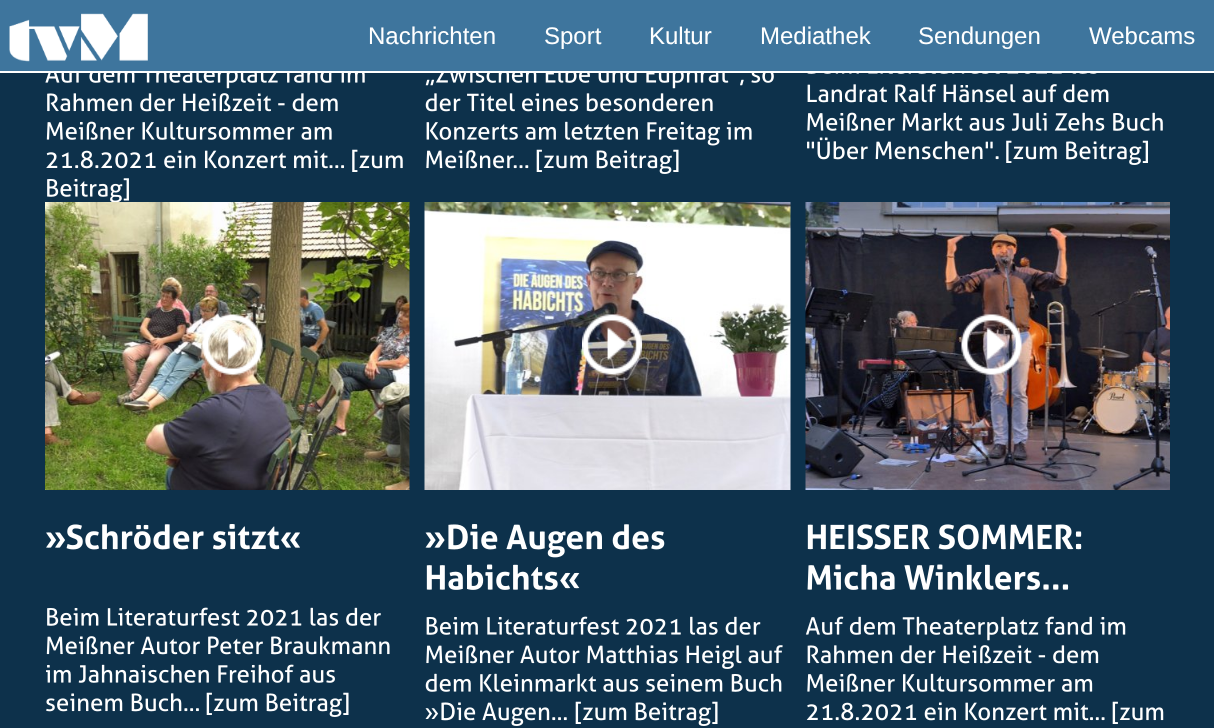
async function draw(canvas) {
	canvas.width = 1214;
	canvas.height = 728;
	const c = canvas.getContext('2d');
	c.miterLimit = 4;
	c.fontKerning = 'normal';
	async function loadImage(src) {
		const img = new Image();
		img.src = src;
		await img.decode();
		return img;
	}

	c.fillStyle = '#0d314b';
	c.fillRect(0, 0, 1214, 728);
	c.fillStyle = '#3e759d';
	c.fillRect(0, 0, 1214, 71);
	c.fillStyle = '#fff';
	c.fillRect(0, 71, 1214, 2);
	c.drawImage(await loadImage('img1.png'), 9, 13, 139, 49);
	c.font = '24px Liberation Sans';
	for (const [text, x, y] of [
		['Nachrichten', 368, 44],
		['Sport', 544, 44],
		['Kultur', 649, 44],
		['Mediathek', 760, 44],
		['Sendungen', 918, 44],
		['Webcams', 1089, 44],
	]) {
		c.fillText(text, x, y);
	}
	c.drawImage(await loadImage('img2.png'), 45, 73, 320, 16);
	c.drawImage(await loadImage('img3.png'), 47, 93, 291, 19);
	c.drawImage(await loadImage('img4.png'), 46, 121, 286, 19);
	c.drawImage(await loadImage('img5.png'), 46, 150, 299, 19);
	c.drawImage(await loadImage('img6.png'), 352, 149, 51, 23);
	c.drawImage(await loadImage('img7.png'), 47, 178, 82, 24);
	c.drawImage(await loadImage('img8.png'), 425, 73, 349, 16);
	c.drawImage(await loadImage('img9.png'), 425, 93, 288, 19);
	c.drawImage(await loadImage('img10.png'), 426, 121, 326, 25);
	c.drawImage(await loadImage('img11.png'), 426, 150, 103, 19);
	c.drawImage(await loadImage('img12.png'), 536, 149, 143, 25);
	c.drawImage(await loadImage('img13.png'), 807, 73, 290, 1);
	c.drawImage(await loadImage('img14.png'), 807, 84, 302, 19);
	c.drawImage(await loadImage('img15.png'), 807, 112, 356, 19);
	c.drawImage(await loadImage('img16.png'), 807, 137, 192, 23);
	c.drawImage(await loadImage('img17.png'), 1006, 140, 142, 25);
	c.drawImage(await loadImage('img18.png'), 45, 202, 365, 288);
	c.drawImage(await loadImage('img19.png'), 202, 314, 61, 61);
	c.drawImage(await loadImage('img20.png'), 46, 524, 254, 26);
	c.drawImage(await loadImage('img21.png'), 47, 607, 334, 19);
	c.drawImage(await loadImage('img22.png'), 46, 636, 344, 19);
	c.drawImage(await loadImage('img23.png'), 46, 664, 289, 19);
	c.drawImage(await loadImage('img24.png'), 46, 693, 153, 19);
	c.drawImage(await loadImage('img12.png'), 206, 692, 143, 25);
	c.drawImage(await loadImage('img25.png'), 424, 202, 367, 288);
	c.drawImage(await loadImage('img26.png'), 582, 314, 60, 61);
	c.drawImage(await loadImage('img27.png'), 425, 524, 240, 34);
	c.drawImage(await loadImage('img28.png'), 426, 564, 154, 26);
	c.drawImage(await loadImage('img29.png'), 426, 616, 335, 19);
	c.drawImage(await loadImage('img30.png'), 426, 645, 357, 24);
	c.drawImage(await loadImage('img31.png'), 425, 673, 357, 19);
	c.drawImage(await loadImage('img32.png'), 425, 702, 142, 24);
	c.drawImage(await loadImage('img12.png'), 575, 701, 143, 25);
	c.drawImage(await loadImage('img33.png'), 805, 202, 365, 288);
	c.drawImage(await loadImage('img34.png'), 961, 314, 61, 61);
	c.drawImage(await loadImage('img35.png'), 807, 524, 275, 26);
	c.drawImage(await loadImage('img36.png'), 807, 564, 262, 26);
	c.drawImage(await loadImage('img37.png'), 805, 616, 321, 25);
	c.drawImage(await loadImage('img38.png'), 807, 645, 292, 19);
	c.drawImage(await loadImage('img39.png'), 807, 673, 286, 19);
	c.drawImage(await loadImage('img40.png'), 806, 702, 299, 19);
	c.drawImage(await loadImage('img41.png'), 1112, 701, 52, 23);
}

draw(document.querySelector('canvas'));
